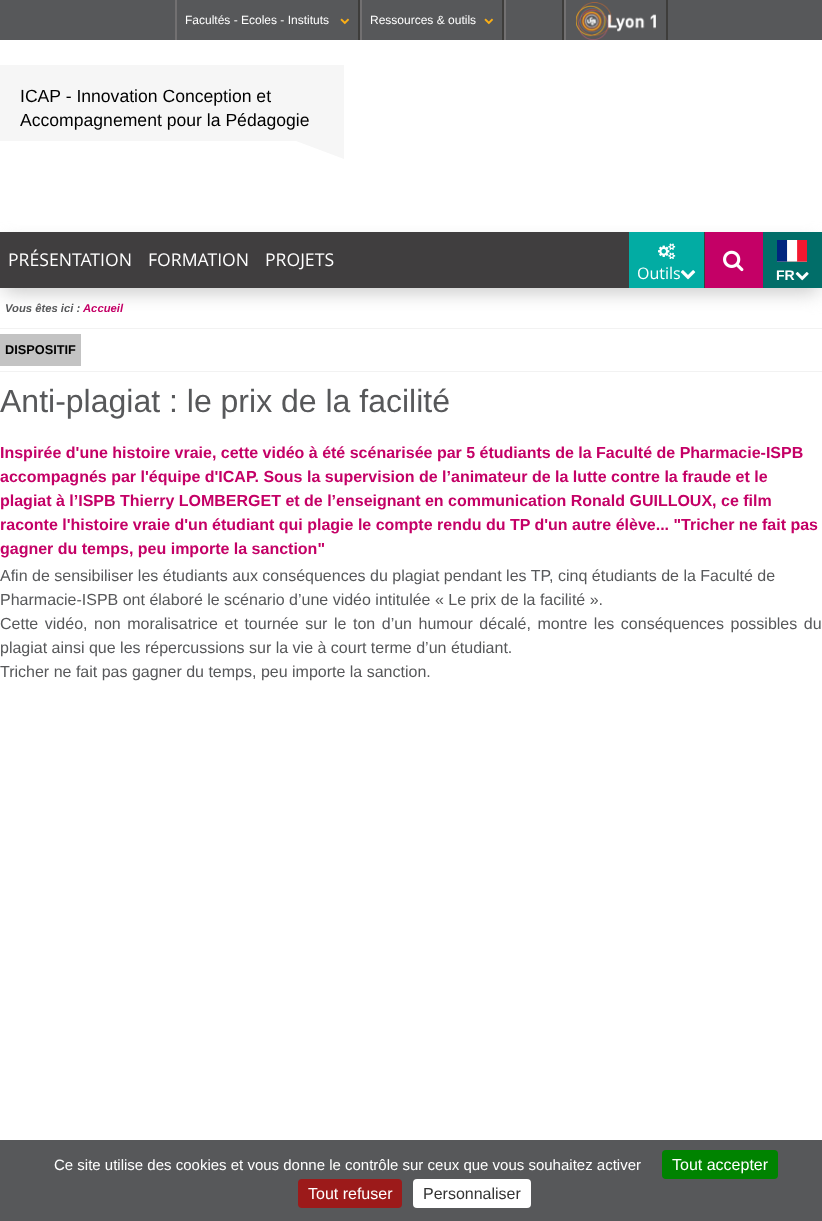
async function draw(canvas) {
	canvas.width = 822;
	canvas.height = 1221;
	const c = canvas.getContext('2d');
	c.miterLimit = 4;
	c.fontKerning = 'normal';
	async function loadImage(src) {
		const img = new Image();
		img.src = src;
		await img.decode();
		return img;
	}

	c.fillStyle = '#fff';
	c.fillRect(0, 0, 822, 1221);
	for (const [x, y, w, h, color] of [
		[0, 0, 822, 40, '#57585a'],
		[358, 0, 2, 40, '#3e3d3b'],
		[175, 0, 2, 40, '#727071'],
	]) {
		c.fillStyle = color;
		c.fillRect(x, y, w, h);
	}
	c.font = '12px Liberation Sans';
	c.fillStyle = '#fff';
	c.fillText('Facultés - Ecoles - Instituts', 185, 24);
	c.drawImage(await loadImage('img1.png'), 340, 18, 10, 7);
	c.fillStyle = '#3e3d3b';
	c.fillRect(502, 0, 2, 40);
	c.fillStyle = '#727071';
	c.fillRect(360, 0, 2, 40);
	c.fillStyle = '#fff';
	c.fillText('Ressources & outils', 370, 24);
	c.drawImage(await loadImage('img1.png'), 484, 18, 10, 7);
	for (const [x, y, w, h, color] of [
		[562, 0, 2, 40, '#3e3d3b'],
		[504, 0, 2, 40, '#727071'],
		[666, 0, 2, 40, '#3e3d3b'],
		[564, 0, 2, 40, '#727071'],
	]) {
		c.fillStyle = color;
		c.fillRect(x, y, w, h);
	}
	c.drawImage(await loadImage('img2.png'), 576, 2, 80, 38);
	c.fillStyle = '#f6f6f6';
	c.fillRect(0, 65, 344, 76);
	c.font = '17.6px Liberation Sans';
	c.fillStyle = '#000';
	c.fillText('ICAP - Innovation Conception et', 20, 102);
	c.fillText('Accompagnement pour la Pédagogie', 20, 126);
	c.fillStyle = '#f6f6f6';
	c.beginPath();
	c.moveTo(344, 141);
	c.lineTo(344, 159);
	c.lineTo(296, 141);
	c.closePath();
	c.fill();
	c.fillStyle = '#c7c7c7';
	c.filter = 'blur(9.5px)';
	c.beginPath();
	c.rect(4, 244, 814, 48);
	c.fill();
	c.filter = 'none';
	c.fillStyle = '#403e3f';
	c.fillRect(0, 232, 705, 56);
	c.font = '17.6px Open Sans';
	c.fillStyle = '#fff';
	for (const [text, x, y] of [
		['PRÉSENTATION', 8, 266],
		['FORMATION', 148, 266],
		['PROJETS', 265, 266],
	]) {
		c.fillText(text, x, y);
	}
	c.fillStyle = '#c40066';
	c.fillRect(705, 232, 58, 56);
	c.drawImage(await loadImage('img3.png'), 723, 250, 21, 22);
	c.fillStyle = '#02aca3';
	c.fillRect(629, 232, 75, 56);
	c.drawImage(await loadImage('img4.png'), 658, 243, 18, 17);
	c.font = '16px Open Sans';
	c.fillStyle = '#fff';
	c.fillText('Outils', 637, 279);
	c.drawImage(await loadImage('img5.png'), 680, 270, 16, 10);
	c.fillStyle = '#016e69';
	c.fillRect(763, 232, 59, 56);
	c.drawImage(await loadImage('img6.png'), 777, 240, 30, 22);
	c.font = 'bold 14px Liberation Sans';
	c.fillStyle = '#fff';
	c.fillText('FR', 776, 280);
	c.drawImage(await loadImage('img7.png'), 795, 272, 14, 9);
	c.font = 'italic bold 11.25px Liberation Sans';
	c.fillStyle = '#57585a';
	c.fillText('Vous êtes ici :', 5, 312);
	c.fillStyle = '#c40066';
	c.fillText('Accueil', 83, 312);
	for (const [x, y, w, h, color] of [
		[0, 328, 822, 1, '#f2f2f2'],
		[0, 371, 822, 1, '#f2f2f2'],
		[0, 334, 81, 32, '#c3c3c3'],
	]) {
		c.fillStyle = color;
		c.fillRect(x, y, w, h);
	}
	c.font = 'bold 12.75px Liberation Sans';
	c.fillStyle = '#000';
	c.fillText('DISPOSITIF', 5, 354);
	c.font = '32px Liberation Sans';
	c.fillStyle = '#57585a';
	c.fillText('Anti-plagiat : le prix de la facilité', 0, 412);
	c.font = 'bold 16px Liberation Sans';
	c.fillStyle = '#c40066';
	for (const [text, x, y] of [
		['Inspirée d\'une histoire vraie, cette vidéo à été scénarisée par 5 étudiants de la Faculté de Pharmacie-ISPB', 0, 458],
		['accompagnés par l\'équipe d\'ICAP. Sous la supervision de l’animateur de la lutte contre la fraude et le', 0, 482],
		['plagiat à l’ISPB Thierry LOMBERGET et de l’enseignant en communication Ronald GUILLOUX, ce film', 0, 506],
		['raconte l\'histoire vraie d\'un étudiant qui plagie le compte rendu du TP d\'un autre élève... "Tricher ne fait pas', 0, 530],
		['gagner du temps, peu importe la sanction"', 0, 554],
	]) {
		c.fillText(text, x, y);
	}
	c.font = '16px Liberation Sans';
	c.fillStyle = '#57585a';
	c.fillText('Afin de sensibiliser les étudiants aux conséquences du plagiat pendant les TP, cinq étudiants de la Faculté de', 0, 581);
	c.fillText('Pharmacie-ISPB ont élaboré le scénario d’une vidéo intitulée « Le prix de la facilité ».', 0, 605);
	c.wordSpacing = '2.1px';
	c.fillText('Cette vidéo, non moralisatrice et tournée sur le ton d’un humour décalé, montre les conséquences possibles du', 0, 629);
	c.wordSpacing = '0px';
	c.fillText('plagiat ainsi que les répercussions sur la vie à court terme d’un étudiant.', 0, 653);
	c.fillText('Tricher ne fait pas gagner du temps, peu importe la sanction.', 0, 677);
	c.fillRect(0, 1140, 822, 81);
	c.font = '15px Liberation Sans';
	c.fillStyle = '#fff';
	c.fillText('Ce site utilise des cookies et vous donne le contrôle sur ceux que vous souhaitez activer', 54, 1170);
	c.fillStyle = '#008300';
	c.beginPath();
	c.roundRect(662, 1150, 116, 29, 4);
	c.fill();
	c.font = '16px Liberation Sans';
	c.fillStyle = '#fff';
	c.fillText('Tout accepter', 672, 1170);
	c.fillStyle = '#9c1a1a';
	c.beginPath();
	c.roundRect(298, 1179, 104, 29, 4);
	c.fill();
	c.fillStyle = '#fff';
	c.fillText('Tout refuser', 308, 1199);
	c.beginPath();
	c.roundRect(413, 1179, 118, 29, 4);
	c.fill();
	c.fillStyle = '#333';
	c.fillText('Personnaliser', 423, 1199);
}

draw(document.querySelector('canvas'));
